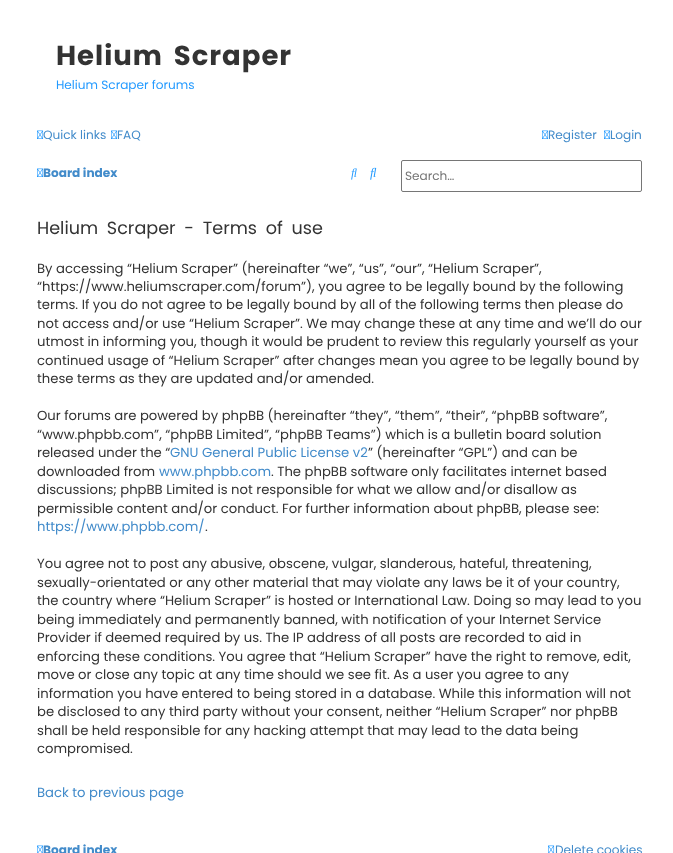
async function draw(canvas) {
	canvas.width = 673;
	canvas.height = 853;
	const c = canvas.getContext('2d');
	c.miterLimit = 4;
	c.fontKerning = 'normal';
	async function loadImage(src) {
		const img = new Image();
		img.src = src;
		await img.decode();
		return img;
	}

	c.fillStyle = '#fff';
	c.fillRect(0, 0, 673, 853);
	c.letterSpacing = '1px';
	c.wordSpacing = '4px';
	c.font = 'bold 27.5px Poppins';
	c.fillStyle = '#333';
	c.fillText('Helium Scraper', 56, 65);
	c.letterSpacing = '0px';
	c.wordSpacing = '0px';
	c.font = '12.1px Poppins';
	c.fillStyle = '#239aff';
	c.fillText('Helium Scraper forums', 56, 89);
	c.drawImage(await loadImage('img1.png'), 37, 130, 7, 9);
	c.fillStyle = '#428bca';
	c.fillText('Quick links', 43, 139);
	c.drawImage(await loadImage('img1.png'), 111, 130, 7, 9);
	c.fillText('FAQ', 117, 139);
	c.drawImage(await loadImage('img1.png'), 542, 130, 7, 9);
	c.fillText('Register', 548, 139);
	c.drawImage(await loadImage('img1.png'), 604, 130, 7, 9);
	c.fillText('Login', 610, 139);
	c.drawImage(await loadImage('img1.png'), 37, 168, 7, 9);
	c.font = 'bold 12.1px Poppins';
	c.fillText('Board index', 43, 177);
	c.drawImage(await loadImage('img2.png'), 351, 168, 6, 12);
	c.drawImage(await loadImage('img3.png'), 370, 167, 7, 13);
	c.beginPath();
	c.roundRect(401.5, 160.5, 240, 31, 1.5);
	c.strokeStyle = '#767676';
	c.stroke();
	c.font = '12.1px Poppins';
	c.fillStyle = '#757575';
	c.fillText('Search…', 405, 180);
	c.wordSpacing = '4px';
	c.font = '17.6px Poppins';
	c.fillStyle = '#333';
	c.fillText('Helium Scraper - Terms of use', 37, 234);
	c.wordSpacing = '0px';
	c.font = '13.2px Poppins';
	for (const [text, x, y] of [
		['By accessing “Helium Scraper” (hereinafter “we”, “us”, “our”, “Helium Scraper”,', 37, 273],
		['“https://www.heliumscraper.com/forum”), you agree to be legally bound by the following', 37, 291],
		['terms. If you do not agree to be legally bound by all of the following terms then please do', 37, 309],
		['not access and/or use “Helium Scraper”. We may change these at any time and we’ll do our', 37, 328],
		['utmost in informing you, though it would be prudent to review this regularly yourself as your', 37, 346],
		['continued usage of “Helium Scraper” after changes mean you agree to be legally bound by', 37, 365],
		['these terms as they are updated and/or amended.', 37, 383],
		['Our forums are powered by phpBB (hereinafter “they”, “them”, “their”, “phpBB software”,', 37, 420],
		['“www.phpbb.com”, “phpBB Limited”, “phpBB Teams”) which is a bulletin board solution', 37, 439],
		['released under the “', 37, 457],
	]) {
		c.fillText(text, x, y);
	}
	c.fillStyle = '#428bca';
	c.fillText('GNU General Public License v2', 170, 457);
	c.fillStyle = '#333';
	c.fillText('” (hereinafter “GPL”) and can be', 368, 457);
	c.fillText('downloaded from', 37, 476);
	c.fillStyle = '#428bca';
	c.fillText('www.phpbb.com', 159, 476);
	c.fillStyle = '#333';
	for (const [text, x, y] of [
		['. The phpBB software only facilitates internet based', 271, 476],
		['discussions; phpBB Limited is not responsible for what we allow and/or disallow as', 37, 494],
		['permissible content and/or conduct. For further information about phpBB, please see:', 37, 513],
	]) {
		c.fillText(text, x, y);
	}
	c.fillStyle = '#428bca';
	c.fillText('https://www.phpbb.com/', 37, 531);
	c.fillStyle = '#333';
	for (const [text, x, y] of [
		['.', 205, 531],
		['You agree not to post any abusive, obscene, vulgar, slanderous, hateful, threatening,', 37, 568],
		['sexually-orientated or any other material that may violate any laws be it of your country,', 37, 587],
		['the country where “Helium Scraper” is hosted or International Law. Doing so may lead to you', 37, 605],
		['being immediately and permanently banned, with notification of your Internet Service', 37, 624],
		['Provider if deemed required by us. The IP address of all posts are recorded to aid in', 37, 642],
		['enforcing these conditions. You agree that “Helium Scraper” have the right to remove, edit,', 37, 661],
		['move or close any topic at any time should we see fit. As a user you agree to any', 37, 679],
		['information you have entered to being stored in a database. While this information will not', 37, 698],
		['be disclosed to any third party without your consent, neither “Helium Scraper” nor phpBB', 37, 716],
		['shall be held responsible for any hacking attempt that may lead to the data being', 37, 735],
		['compromised.', 37, 753],
	]) {
		c.fillText(text, x, y);
	}
	c.fillStyle = '#428bca';
	c.fillText('Back to previous page', 37, 797);
	c.drawImage(await loadImage('img4.png'), 37, 845, 7, 8);
	c.font = 'bold 12.1px Poppins';
	c.fillText('Board index', 43, 854);
	c.drawImage(await loadImage('img4.png'), 548, 845, 7, 8);
	c.font = '12.1px Poppins';
	c.fillText('Delete cookies', 555, 854);
}

draw(document.querySelector('canvas'));
